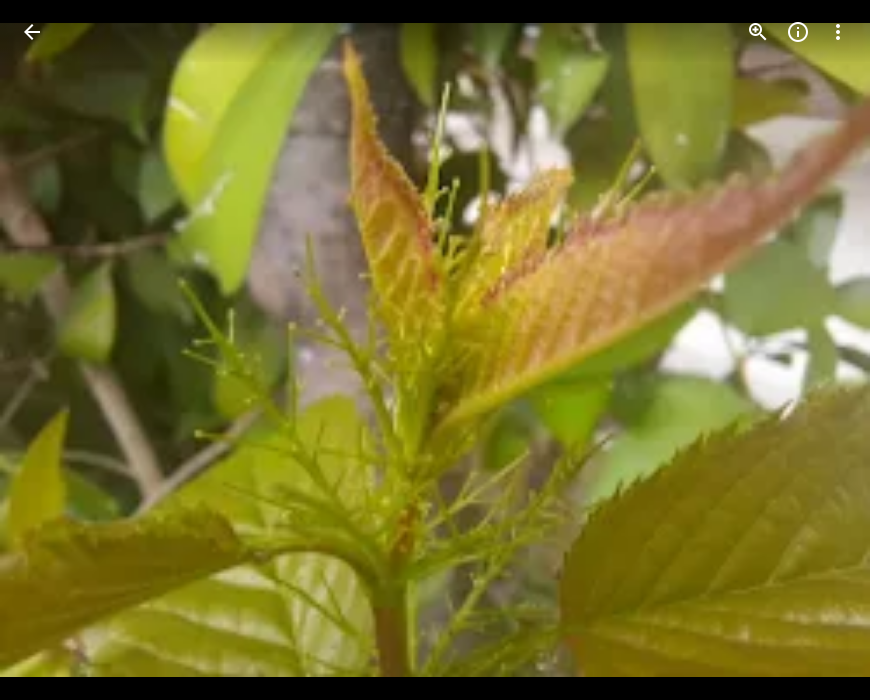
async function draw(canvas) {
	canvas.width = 870;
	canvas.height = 700;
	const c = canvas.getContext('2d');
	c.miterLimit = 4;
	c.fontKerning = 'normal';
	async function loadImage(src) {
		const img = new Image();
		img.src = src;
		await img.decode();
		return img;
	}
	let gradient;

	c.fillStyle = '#000';
	c.fillRect(0, 0, 870, 700);
	c.drawImage(await loadImage('img5.png'), 0, 23, 870, 654);
	gradient = c.createLinearGradient(435, 0, 435, 64);
	gradient.addColorStop(0, '#00000099');
	gradient.addColorStop(1, '#00000000');
	c.fillStyle = gradient;
	c.fillRect(0, 23, 870, 39);
	c.drawImage(await loadImage('img1.png'), 24, 24, 16, 16);
	c.drawImage(await loadImage('img2.png'), 749, 23, 18, 18);
	c.drawImage(await loadImage('img3.png'), 788, 22, 20, 20);
	c.drawImage(await loadImage('img4.png'), 836, 24, 4, 16);
}

draw(document.querySelector('canvas'));
